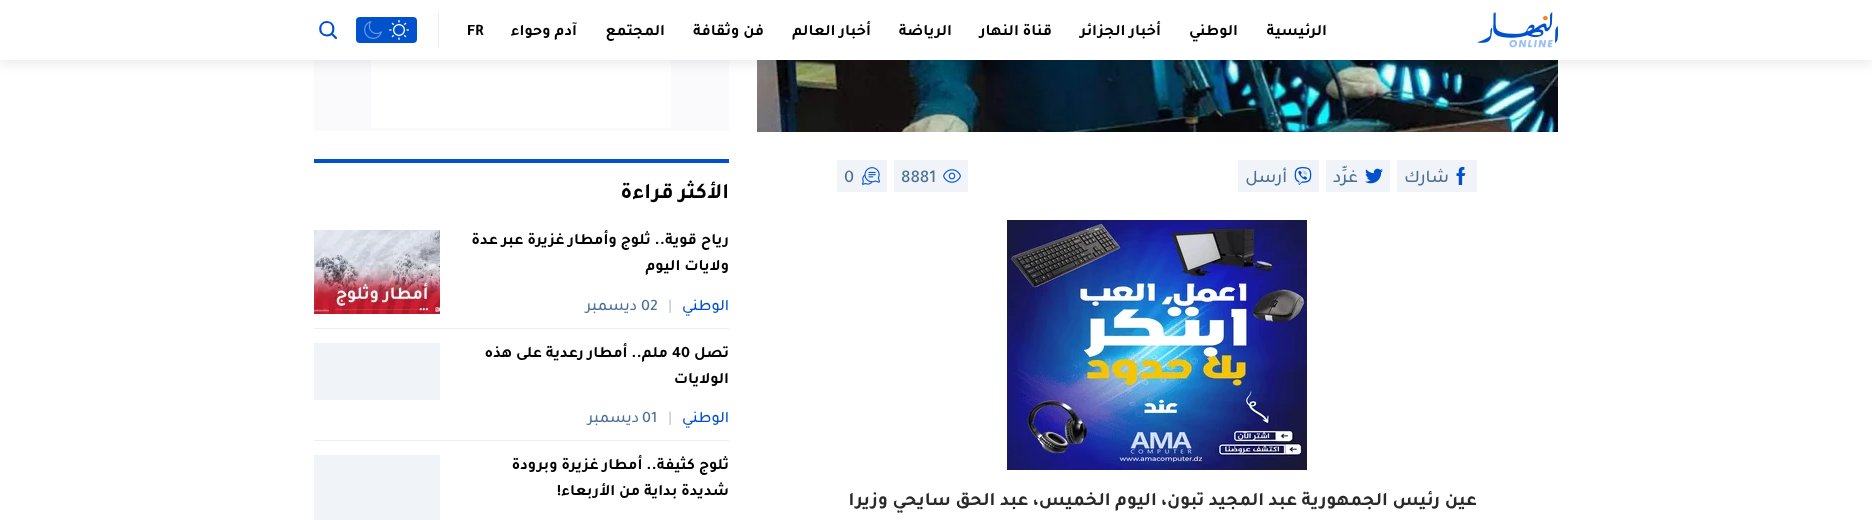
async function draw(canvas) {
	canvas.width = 1872;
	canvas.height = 520;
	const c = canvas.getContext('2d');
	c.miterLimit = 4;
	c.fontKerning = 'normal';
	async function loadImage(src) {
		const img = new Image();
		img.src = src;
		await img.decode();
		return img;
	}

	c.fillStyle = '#fff';
	c.fillRect(0, 0, 1872, 520);
	c.drawImage(await loadImage('img4.png'), 757, 60, 801, 72);
	c.fillStyle = '#fafafc';
	c.fillRect(314, 60, 415, 71);
	c.fillStyle = '#fff';
	c.fillRect(371, 60, 300, 68);
	c.fillStyle = '#00000014';
	c.filter = 'blur(6px)';
	c.beginPath();
	c.rect(0, 4, 1872, 60);
	c.fill();
	c.filter = 'none';
	c.fillStyle = '#fff';
	c.fillRect(0, 0, 1872, 60);
	c.drawImage(await loadImage('img1.png'), 1477, 12, 81, 36);
	c.direction = 'rtl';
	c.font = 'bold 16px Tajawal';
	c.fillStyle = '#000';
	for (const [text, x, y] of [
		['الرئيسية', 1327, 35],
		['الوطني', 1238, 35],
		['أخبار الجزائر', 1161, 35],
		['قناة النهار', 1052, 35],
		['الرياضة', 952, 35],
		['أخبار العالم', 871, 35],
		['فن وثقافة', 764, 35],
		['المجتمع', 665, 35],
		['آدم وحواء', 577, 35],
	]) {
		c.fillText(text, x, y);
	}
	c.direction = 'ltr';
	c.fillText('FR', 467, 35);
	c.fillStyle = '#ededf0';
	c.fillRect(438, 13, 1, 35);
	c.fillStyle = '#0052cc';
	c.beginPath();
	c.roundRect(356, 17, 61, 26, 4);
	c.fill();
	c.drawImage(await loadImage('img2.png'), 389, 20, 20, 20);
	c.drawImage(await loadImage('img3.png'), 364, 21, 18, 18);
	c.beginPath();
	c.moveTo(336, 38);
	c.lineTo(332.5, 34.5);
	c.closePath();
	c.moveTo(327, 22);
	c.bezierCurveTo(335.5, 22, 335.5, 35.5, 327, 35.5);
	c.bezierCurveTo(318, 35.5, 318, 22, 327, 22);
	c.closePath();
	c.strokeStyle = '#0052cc';
	c.lineWidth = 2.2;
	c.lineJoin = 'round';
	c.stroke();
	c.fillStyle = '#f0f3f7';
	c.fillRect(1397, 160, 80, 32);
	c.drawImage(await loadImage('img5.png'), 1456, 167, 10, 18);
	c.direction = 'rtl';
	c.font = '500 18px Tajawal';
	c.fillStyle = '#4d7192';
	c.fillText('شارك', 1449, 182);
	c.fillStyle = '#f0f3f7';
	c.fillRect(1326, 160, 64, 32);
	c.drawImage(await loadImage('img6.png'), 1365, 168, 18, 16);
	c.fillStyle = '#4d7192';
	c.fillText('غرِّد', 1358, 182);
	c.fillStyle = '#f0f3f7';
	c.fillRect(1238, 160, 81, 32);
	c.drawImage(await loadImage('img7.png'), 1294, 167, 18, 18);
	c.fillStyle = '#4d7192';
	c.fillText('أرسل', 1287, 182);
	c.fillStyle = '#f0f3f7';
	c.fillRect(894, 160, 74, 32);
	c.drawImage(await loadImage('img8.png'), 943, 169, 18, 14);
	c.direction = 'ltr';
	c.fillStyle = '#4d7192';
	c.fillText('8881', 901, 182);
	c.fillStyle = '#f0f3f7';
	c.fillRect(837, 160, 50, 32);
	c.drawImage(await loadImage('img9.png'), 862, 167, 18, 18);
	c.fillStyle = '#4d7192';
	c.fillText('0', 844, 182);
	c.drawImage(await loadImage('img10.png'), 1007, 220, 300, 250);
	c.direction = 'rtl';
	c.font = 'bold 19px Tajawal';
	c.fillStyle = '#292929';
	c.fillText('عين رئيس الجمهورية عبد المجيد تبون، اليوم الخميس، عبد الحق سايحي وزيرا', 1477, 505);
	c.fillStyle = '#0052cc';
	c.fillRect(314, 159, 415, 4);
	c.font = 'bold 22px Tajawal';
	c.fillStyle = '#000';
	c.fillText('الأكثر قراءة', 729, 198);
	c.fillStyle = '#ededf0';
	c.fillRect(314, 328, 415, 1);
	c.font = 'bold 16px Tajawal';
	c.fillStyle = '#000';
	c.fillText('رياح قوية.. ثلوج وأمطار غزيرة عبر عدة', 729, 244);
	c.fillText('ولايات اليوم', 729, 270);
	c.font = '500 16px Tajawal';
	c.fillStyle = '#0052cc';
	c.fillText('الوطني', 729, 310);
	c.direction = 'ltr';
	c.fillStyle = '#bbc5ce';
	c.fillText('|', 668, 310);
	c.fillStyle = '#4d7192';
	c.fillText('02', 641, 310);
	c.direction = 'rtl';
	c.fillText('ديسمبر', 637, 310);
	c.drawImage(await loadImage('img11.png'), 314, 230, 126, 84);
	c.fillStyle = '#ededf0';
	c.fillRect(314, 440, 415, 1);
	c.font = 'bold 16px Tajawal';
	c.fillStyle = '#000';
	c.fillText('تصل', 729, 357);
	c.direction = 'ltr';
	c.fillText('40', 672, 357);
	c.direction = 'rtl';
	c.fillText('ملم.. أمطار رعدية على هذه', 668, 357);
	c.fillText('الولايات', 729, 383);
	c.font = '500 16px Tajawal';
	c.fillStyle = '#0052cc';
	c.fillText('الوطني', 729, 422);
	c.direction = 'ltr';
	c.fillStyle = '#bbc5ce';
	c.fillText('|', 668, 422);
	c.fillStyle = '#4d7192';
	c.fillText('01', 642, 422);
	c.direction = 'rtl';
	c.fillText('ديسمبر', 639, 422);
	c.fillStyle = '#f0f3f7';
	c.fillRect(314, 343, 126, 57);
	c.font = 'bold 16px Tajawal';
	c.fillStyle = '#000';
	c.fillText('ثلوج كثيفة.. أمطار غزيرة وبرودة', 729, 469);
	c.fillText('شديدة بداية من الأربعاء!', 729, 495);
	c.fillStyle = '#f0f3f7';
	c.fillRect(314, 455, 126, 65);
}

draw(document.querySelector('canvas'));
